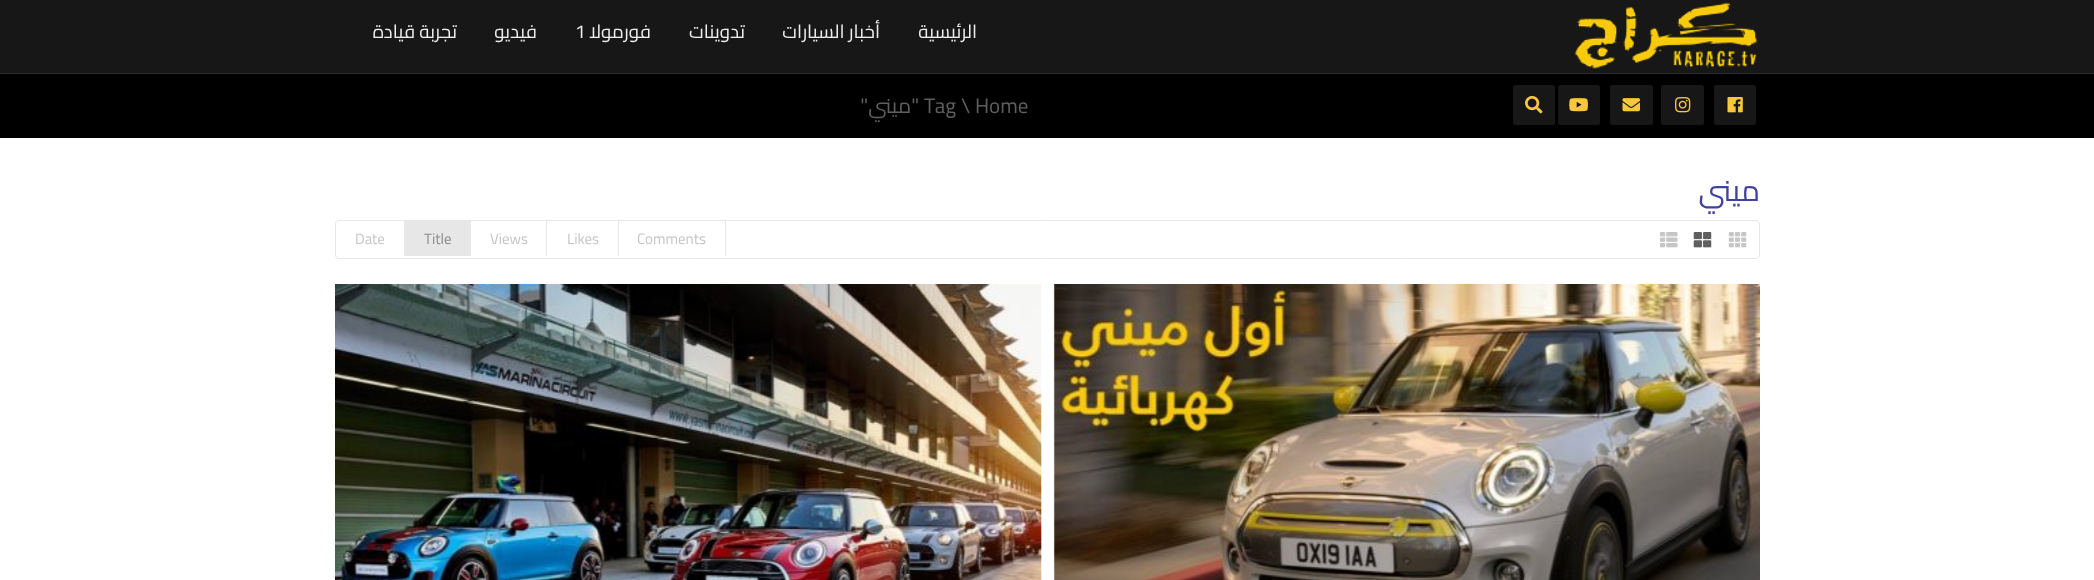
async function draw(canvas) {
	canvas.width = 2094;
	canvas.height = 580;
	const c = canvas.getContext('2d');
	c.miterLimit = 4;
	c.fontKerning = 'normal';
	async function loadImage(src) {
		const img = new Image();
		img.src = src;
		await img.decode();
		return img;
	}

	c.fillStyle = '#fff';
	c.fillRect(0, 0, 2094, 580);
	c.fillStyle = '#171717';
	c.fillRect(0, 0, 2094, 73);
	c.fillStyle = '#2b2b2b';
	c.fillRect(0, 73, 2094, 1);
	c.drawImage(await loadImage('img1.png'), 1574, 2, 184, 67);
	c.direction = 'rtl';
	c.font = '18.75px Cairo';
	c.fillStyle = '#eee';
	for (const [text, x, y] of [
		['الرئيسية', 977, 38],
		['أخبار السيارات', 880, 38],
		['تدوينات', 745, 38],
		['فورمولا', 651, 38],
	]) {
		c.fillText(text, x, y);
	}
	c.direction = 'ltr';
	c.fillText('1', 575, 38);
	c.direction = 'rtl';
	c.fillText('فيديو', 537, 38);
	c.fillText('تجربة قيادة', 457, 38);
	c.fillStyle = '#000';
	c.fillRect(0, 74, 2094, 64);
	c.fillStyle = '#171717';
	c.beginPath();
	c.roundRect(1714, 85, 42, 40, 2.5);
	c.fill();
	c.drawImage(await loadImage('img2.png'), 1727, 97, 16, 16);
	c.beginPath();
	c.roundRect(1661, 85, 43, 40, 2.5);
	c.fill();
	c.drawImage(await loadImage('img3.png'), 1675, 97, 16, 16);
	c.beginPath();
	c.roundRect(1610, 85, 43, 40, 2.5);
	c.fill();
	c.drawImage(await loadImage('img4.png'), 1622, 98, 18, 14);
	c.beginPath();
	c.roundRect(1558, 85, 42, 40, 2.5);
	c.fill();
	c.drawImage(await loadImage('img5.png'), 1569, 98, 19, 14);
	c.beginPath();
	c.roundRect(1513, 85, 42, 40, 2.5);
	c.fill();
	c.drawImage(await loadImage('img6.png'), 1525, 95, 18, 19);
	c.direction = 'ltr';
	c.font = '21px Cairo';
	c.fillStyle = '#5f5f5f';
	for (const [text, x, y] of [
		['Home', 975, 113],
		['\\', 961, 113],
		['Tag', 924, 113],
	]) {
		c.fillText(text, x, y);
	}
	c.direction = 'rtl';
	c.fillText('"ميني"', 919, 113);
	c.font = '30px Cairo';
	c.fillStyle = '#4141a0';
	c.fillText('ميني', 1760, 201);
	c.beginPath();
	c.roundRect(335.5, 220.5, 1424, 38, 3.5);
	c.strokeStyle = '#e7e7e7';
	c.stroke();
	c.drawImage(await loadImage('img7.png'), 1728, 232, 19, 16);
	c.drawImage(await loadImage('img8.png'), 1693, 232, 19, 16);
	c.drawImage(await loadImage('img9.png'), 1660, 232, 18, 16);
	c.fillStyle = '#e7e7e7';
	c.fillRect(725, 221, 1, 35);
	c.fillRect(618, 221, 1, 35);
	c.direction = 'ltr';
	c.font = '15px Cairo';
	c.fillStyle = '#c6c6c6';
	c.fillText('Comments', 637, 244);
	c.fillStyle = '#e7e7e7';
	c.fillRect(546, 221, 1, 35);
	c.fillStyle = '#c6c6c6';
	c.fillText('Likes', 567, 244);
	c.fillText('Views', 490, 244);
	c.save();
	c.beginPath();
	c.roundRect(336, 221, 1423, 37, 2.5);
	c.clip();
	c.fillStyle = '#fff';
	c.beginPath();
	c.roundRect(336, 221, 69, 35, [2.5, 0, 0, 0]);
	c.fill();
	c.restore();
	c.fillStyle = '#e7e7e7';
	c.fillRect(404, 221, 67, 35);
	c.fillStyle = '#8e8e8e';
	c.fillText('Title', 424, 244);
	c.fillStyle = '#c6c6c6';
	c.fillText('Date', 355, 244);
	c.drawImage(await loadImage('img10.png'), 1053, 284, 707, 296);
	c.drawImage(await loadImage('img11.png'), 335, 284, 707, 296);
}

draw(document.querySelector('canvas'));
